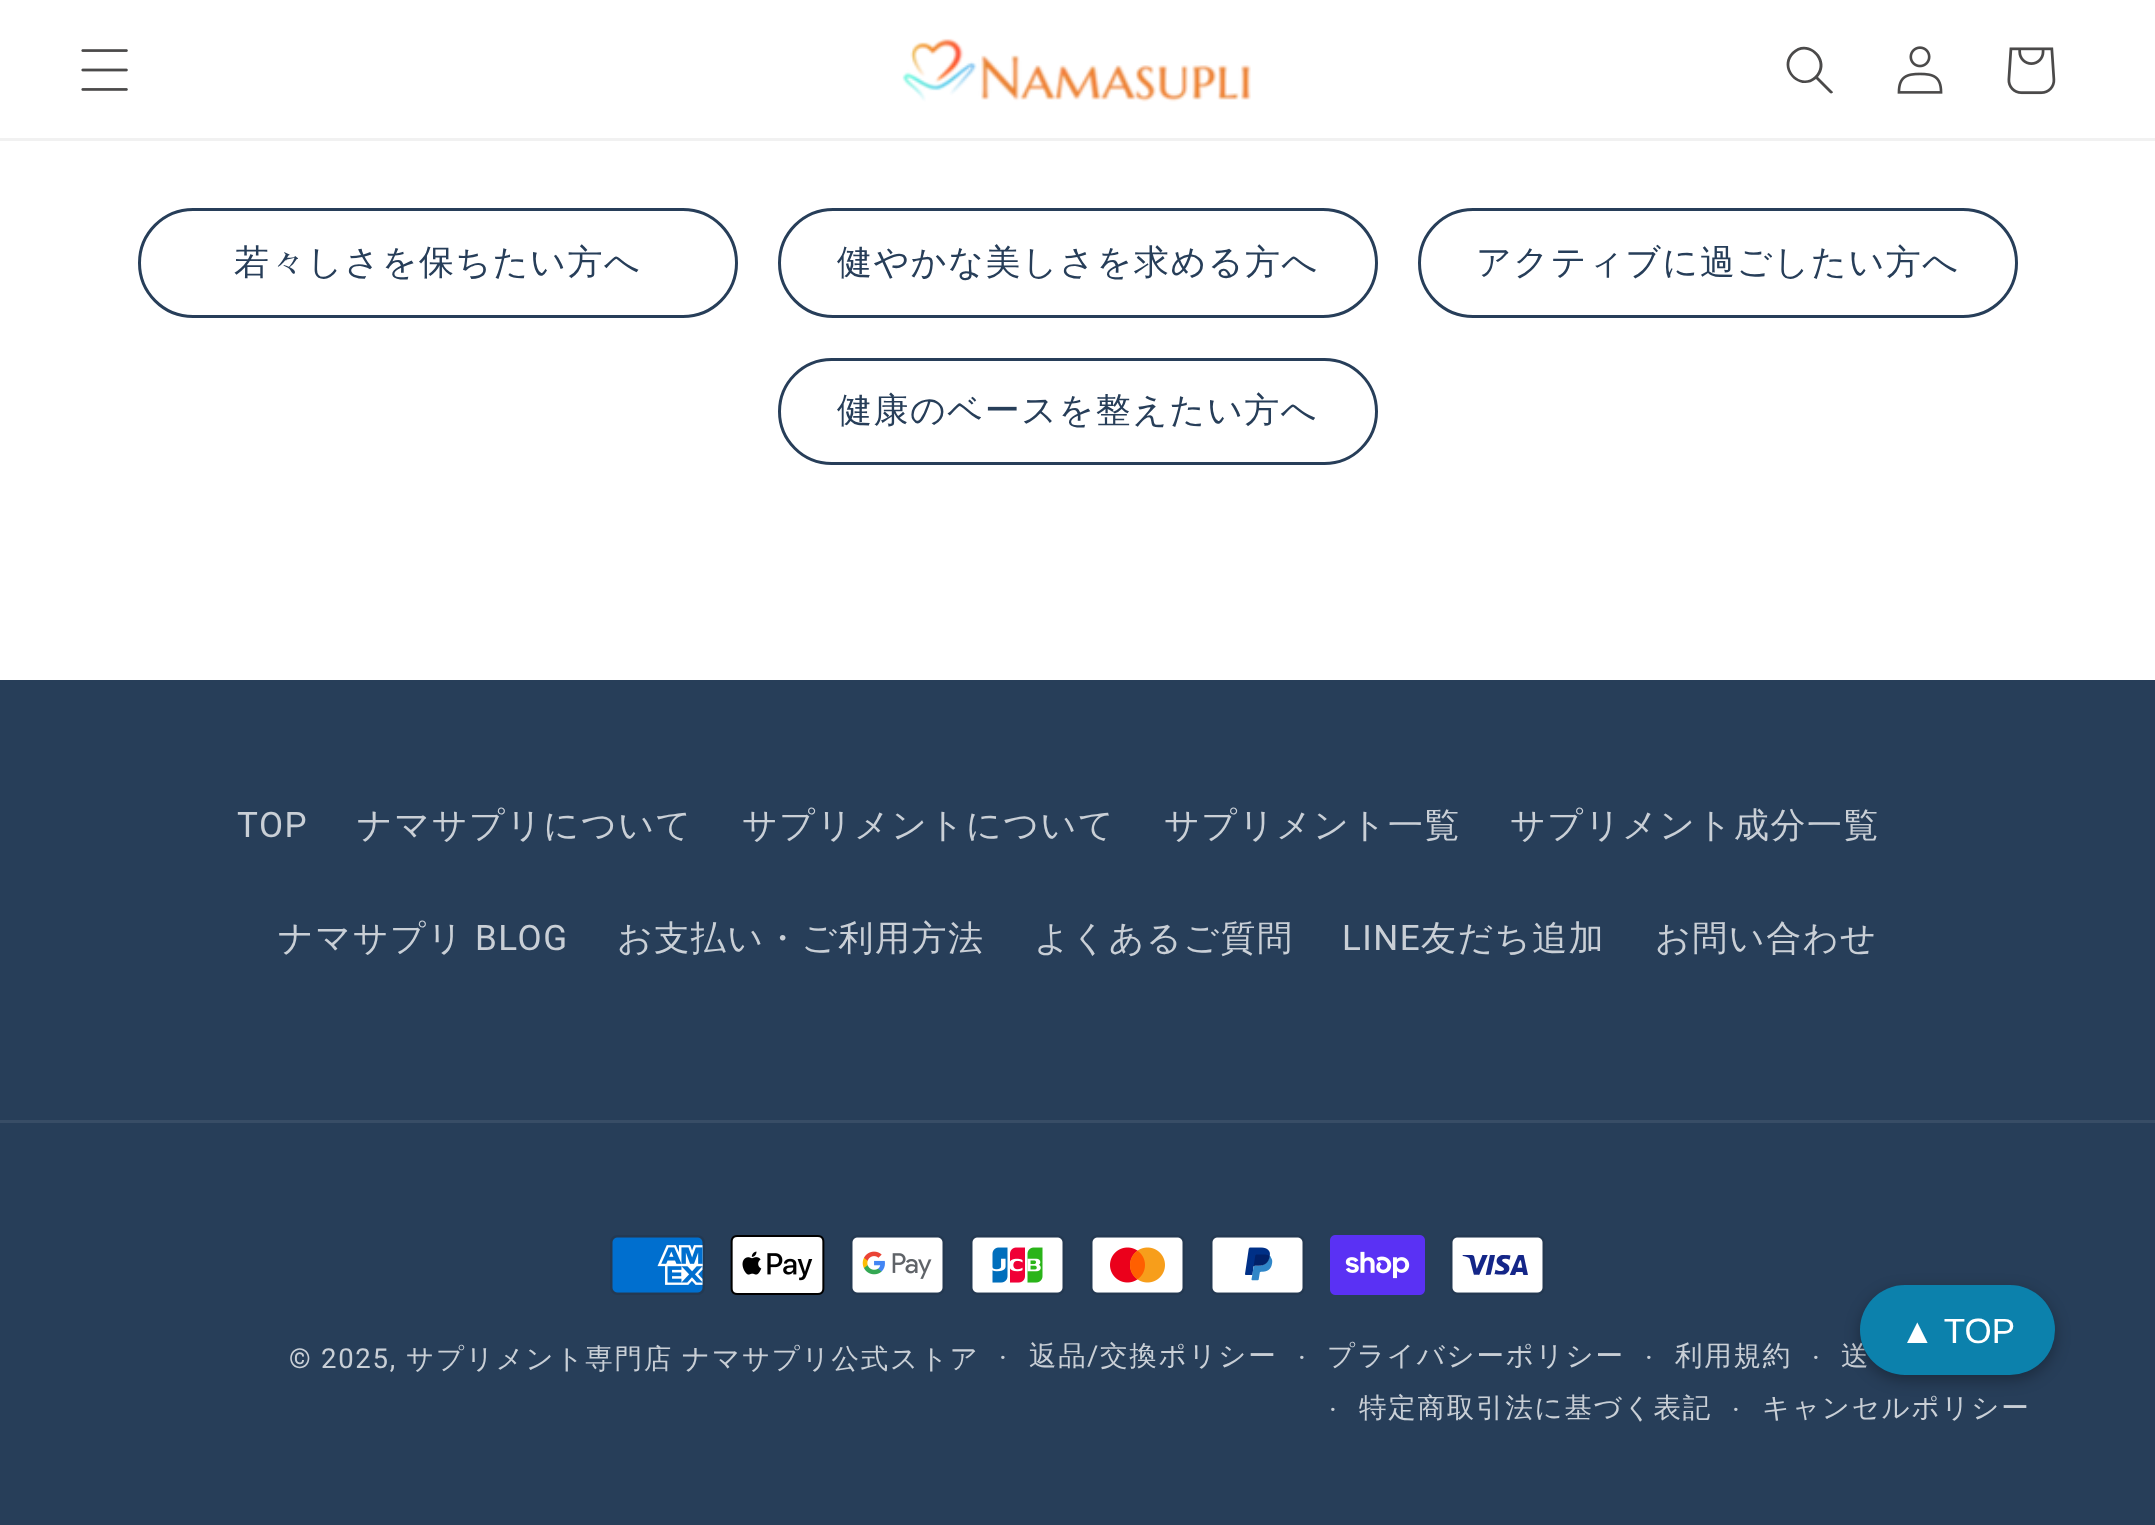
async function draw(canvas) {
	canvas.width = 2155;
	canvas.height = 1525;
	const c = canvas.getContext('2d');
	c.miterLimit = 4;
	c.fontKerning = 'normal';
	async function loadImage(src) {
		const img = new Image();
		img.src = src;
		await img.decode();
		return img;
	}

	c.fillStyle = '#fff';
	c.fillRect(0, 0, 2155, 1525);
	c.fillStyle = '#f1f1f1';
	c.fillRect(0, 138, 2155, 3);
	c.drawImage(await loadImage('img1.png'), 81, 49, 47, 42);
	c.drawImage(await loadImage('img2.png'), 902, 38, 349, 64);
	c.fillStyle = '#4b4a4a';
	c.beginPath();
	c.moveTo(1815, 76);
	c.bezierCurveTo(1801, 90, 1780, 68, 1794, 54);
	c.bezierCurveTo(1808, 40, 1829, 62, 1815, 76);
	c.moveTo(1816, 79);
	c.bezierCurveTo(1799, 93, 1776, 68, 1792, 52);
	c.bezierCurveTo(1808, 36, 1833, 60, 1818, 77);
	c.lineTo(1833, 92);
	c.bezierCurveTo(1833, 93, 1831, 94, 1830, 93);
	c.closePath();
	c.fill('evenodd');
	c.drawImage(await loadImage('img3.png'), 1897, 46, 46, 48);
	c.drawImage(await loadImage('img4.png'), 2007, 47, 49, 48);
	c.beginPath();
	c.roundRect(139.5, 209.5, 597, 107, 53.5);
	c.strokeStyle = '#273e59';
	c.lineWidth = 3;
	c.stroke();
	c.letterSpacing = '1.5px';
	c.font = '500 35px WenQuanYi Zen Hei';
	c.fillStyle = '#273e59';
	c.fillText('若々しさを保ちたい方へ', 234, 274);
	c.beginPath();
	c.roundRect(779.5, 209.5, 597, 107, 53.5);
	c.stroke();
	c.fillText('健やかな美しさを求める方へ', 837, 274);
	c.beginPath();
	c.roundRect(1419.5, 209.5, 597, 107, 53.5);
	c.stroke();
	c.fillText('アクティブに過ごしたい方へ', 1476, 274);
	c.beginPath();
	c.roundRect(779.5, 359.5, 597, 104, 52);
	c.stroke();
	c.fillText('健康のベースを整えたい方へ', 837, 422);
	c.fillRect(0, 680, 2155, 845);
	c.font = '35px Roboto';
	c.fillStyle = '#c9cfd6';
	c.fillText('TOP', 237, 837);
	c.font = '500 35px WenQuanYi Zen Hei';
	for (const [text, x, y] of [
		['ナマサプリについて', 357, 837],
		['サプリメントについて', 742, 837],
		['サプリメント一覧', 1164, 837],
		['サプリメント成分一覧', 1510, 837],
		['ナマサプリ', 278, 950],
	]) {
		c.fillText(text, x, y);
	}
	c.font = '35px Roboto';
	c.fillText('BLOG', 475, 950);
	c.font = '500 35px WenQuanYi Zen Hei';
	c.fillText('お支払い・ご利用方法', 617, 950);
	c.fillText('よくあるご質問', 1034, 950);
	c.font = '35px Roboto';
	c.fillText('LINE', 1342, 950);
	c.font = '500 35px WenQuanYi Zen Hei';
	c.fillText('友だち追加', 1421, 950);
	c.fillText('お問い合わせ', 1655, 950);
	c.fillStyle = '#384d66';
	c.fillRect(0, 1120, 2155, 3);
	c.drawImage(await loadImage('img5.png'), 610, 1235, 95, 60);
	c.drawImage(await loadImage('img6.png'), 730, 1235, 95, 60);
	c.drawImage(await loadImage('img7.png'), 850, 1235, 95, 60);
	c.drawImage(await loadImage('img8.png'), 970, 1235, 95, 60);
	c.drawImage(await loadImage('img9.png'), 1090, 1235, 95, 60);
	c.drawImage(await loadImage('img10.png'), 1210, 1235, 95, 60);
	c.drawImage(await loadImage('img11.png'), 1330, 1235, 95, 60);
	c.drawImage(await loadImage('img12.png'), 1450, 1235, 95, 60);
	c.letterSpacing = '1.75px';
	c.font = '27.5px Roboto';
	c.fillStyle = '#c9cfd6';
	c.fillText('© 2025,', 289, 1368);
	c.wordSpacing = '-1px';
	c.font = '500 27.5px WenQuanYi Zen Hei';
	c.fillText('サプリメント専門店 ナマサプリ公式ストア', 406, 1368);
	c.wordSpacing = '0px';
	c.font = '30px Roboto';
	c.fillText('·', 999, 1368);
	c.font = '500 27.5px WenQuanYi Zen Hei';
	c.fillText('返品', 1029, 1365);
	c.font = '27.5px Roboto';
	c.fillText('/', 1087, 1365);
	c.font = '500 27.5px WenQuanYi Zen Hei';
	c.fillText('交換ポリシー', 1100, 1365);
	c.font = '30px Roboto';
	c.fillText('·', 1298, 1368);
	c.font = '500 27.5px WenQuanYi Zen Hei';
	c.fillText('プライバシーポリシー', 1327, 1365);
	c.font = '30px Roboto';
	c.fillText('·', 1645, 1368);
	c.font = '500 27.5px WenQuanYi Zen Hei';
	c.fillText('利用規約', 1675, 1365);
	c.font = '30px Roboto';
	c.fillText('·', 1812, 1368);
	c.font = '500 27.5px WenQuanYi Zen Hei';
	c.fillText('送', 1841, 1365);
	c.font = '30px Roboto';
	c.fillText('·', 1329, 1420);
	c.font = '500 27.5px WenQuanYi Zen Hei';
	c.fillText('特定商取引法に基づく表記', 1359, 1417);
	c.font = '30px Roboto';
	c.fillText('·', 1732, 1420);
	c.font = '500 27.5px WenQuanYi Zen Hei';
	c.fillText('キャンセルポリシー', 1762, 1417);
	c.fillStyle = '#0000004d';
	c.filter = 'blur(7.5px)';
	c.beginPath();
	c.roundRect(1860, 1290, 195, 90, 45);
	c.fill();
	c.filter = 'none';
	c.fillStyle = '#0c81ac';
	c.beginPath();
	c.roundRect(1860, 1285, 195, 90, 45);
	c.fill();
	c.letterSpacing = '0px';
	c.font = '35px Liberation Sans';
	c.fillStyle = '#fff';
	c.fillText('▲ TOP', 1900, 1343);
}

draw(document.querySelector('canvas'));
